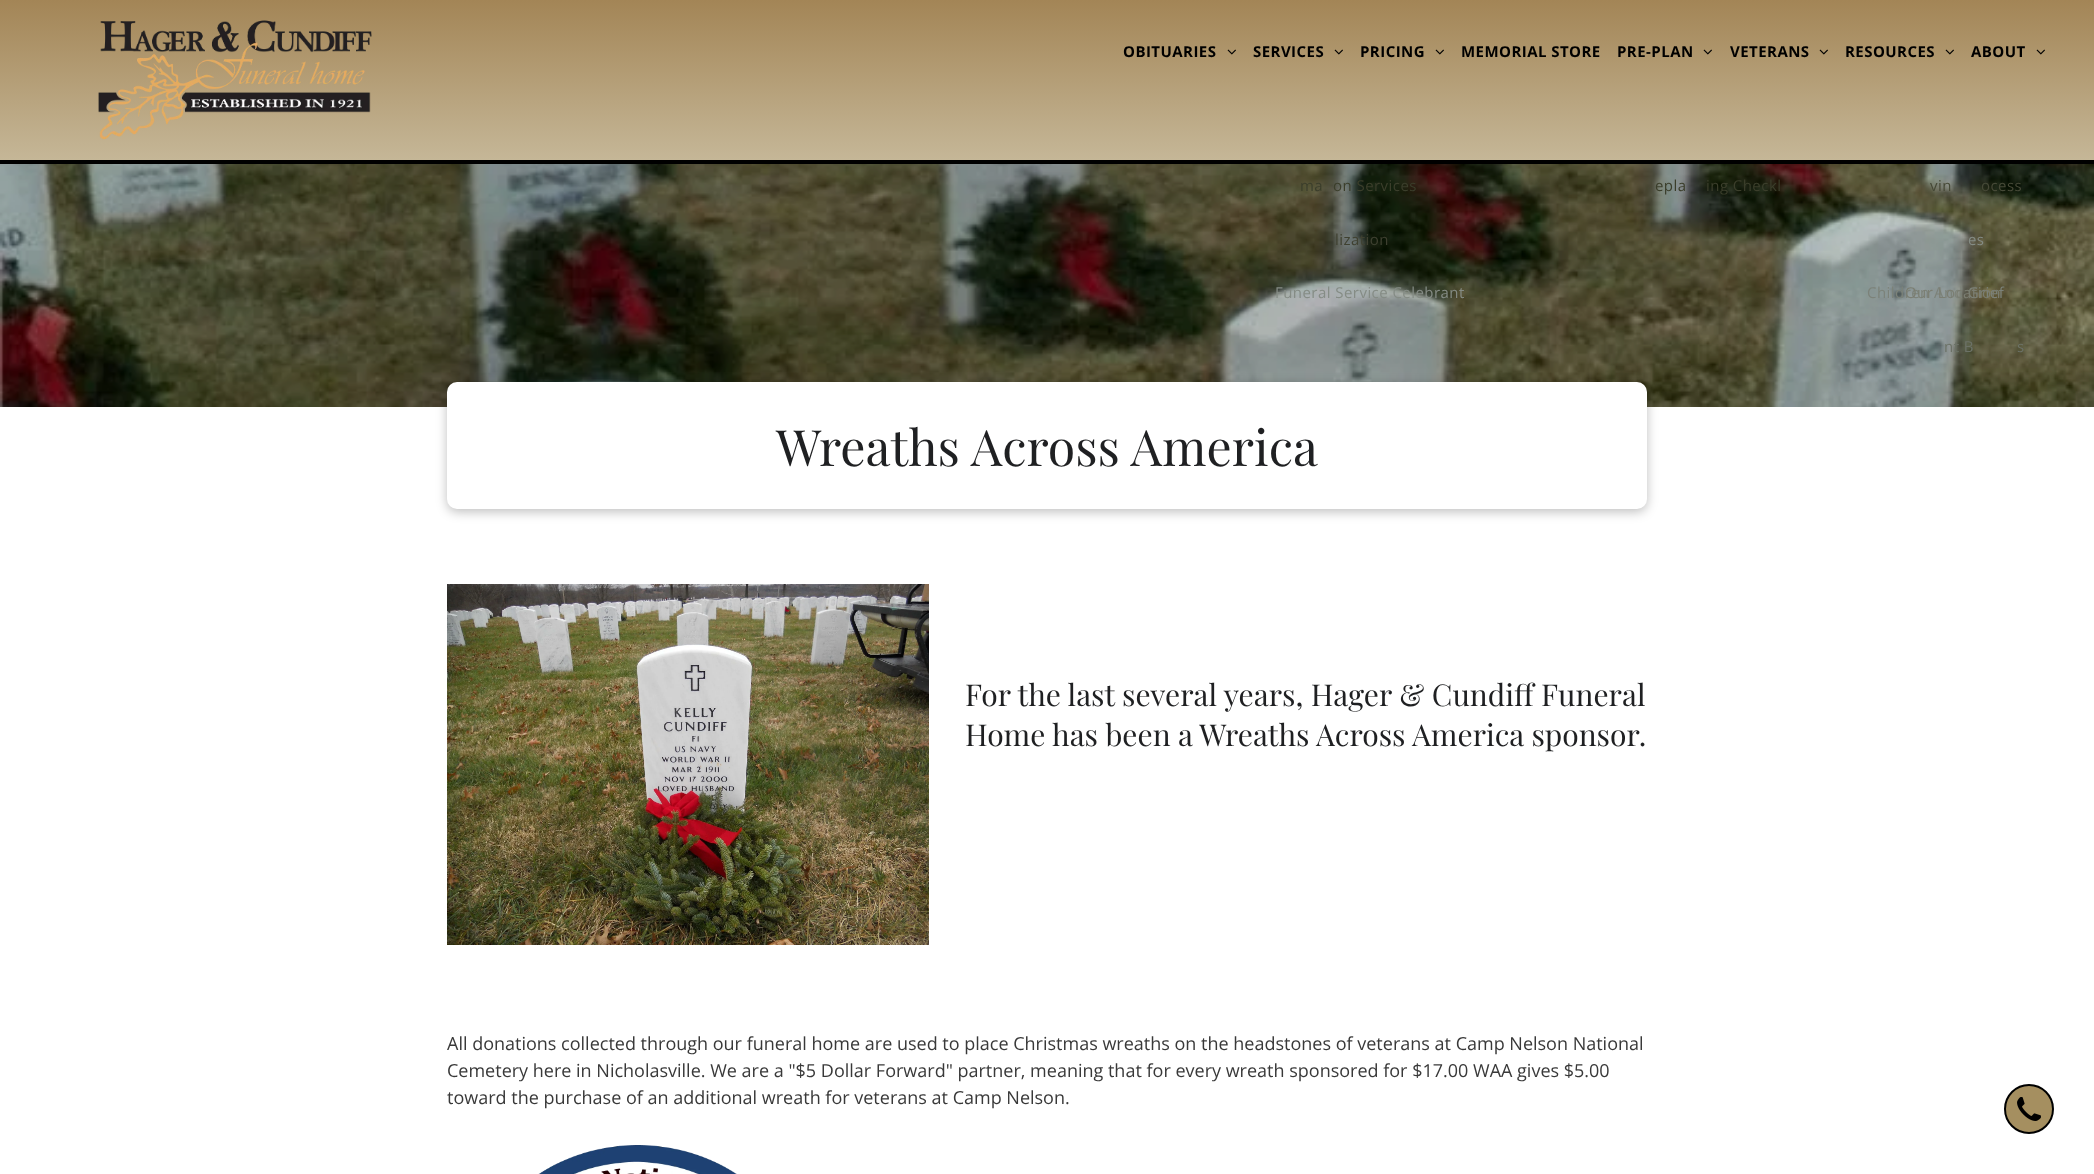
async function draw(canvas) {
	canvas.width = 2094;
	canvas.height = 1174;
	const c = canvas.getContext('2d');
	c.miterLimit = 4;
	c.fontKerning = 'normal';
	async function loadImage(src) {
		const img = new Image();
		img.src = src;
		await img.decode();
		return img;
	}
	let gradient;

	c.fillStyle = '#fff';
	c.fillRect(0, 0, 2094, 1174);
	gradient = c.createLinearGradient(1047, 164, 1047, 0);
	gradient.addColorStop(0, '#c6b899');
	gradient.addColorStop(1, '#a38556');
	c.fillStyle = gradient;
	c.fillRect(0, 0, 2094, 160);
	c.fillStyle = '#000';
	c.fillRect(0, 160, 2094, 4);
	c.drawImage(await loadImage('img1.png'), 98, 20, 274, 120);
	c.letterSpacing = '0.45px';
	c.font = 'bold 15px Open Sans';
	c.fillText('OBITUARIES', 1123, 57);
	c.drawImage(await loadImage('img2.png'), 1227, 49, 9, 6);
	c.fillText('SERVICES', 1253, 57);
	c.drawImage(await loadImage('img2.png'), 1334, 49, 9, 6);
	c.drawImage(await loadImage('img3.png'), 0, 164, 2094, 243);
	c.font = '15px Open Sans';
	c.fillStyle = '#3b3e2b';
	c.fillText('ma', 1300, 191);
	c.fillText('on Services', 1333, 191);
	c.fillStyle = '#3f4131';
	c.fillText('lization', 1335, 245);
	c.fillStyle = '#858c85';
	c.fillText('Funeral Service Celebrant', 1275, 298);
	c.font = 'bold 15px Open Sans';
	c.fillStyle = '#000';
	c.fillText('PRICING', 1360, 57);
	c.drawImage(await loadImage('img2.png'), 1435, 49, 9, 6);
	c.fillText('MEMORIAL STORE', 1461, 57);
	c.fillText('PRE-PLAN', 1617, 57);
	c.drawImage(await loadImage('img2.png'), 1703, 49, 9, 6);
	c.font = '15px Open Sans';
	c.fillStyle = '#3b3e2b';
	c.fillText('epla', 1655, 191);
	c.fillText('ing Checkl', 1706, 191);
	c.font = 'bold 15px Open Sans';
	c.fillStyle = '#000';
	c.fillText('VETERANS', 1730, 57);
	c.drawImage(await loadImage('img2.png'), 1819, 49, 9, 6);
	c.fillText('RESOURCES', 1845, 57);
	c.drawImage(await loadImage('img2.png'), 1945, 49, 9, 6);
	c.font = '15px Open Sans';
	c.fillStyle = '#464937';
	c.fillText('vin', 1930, 191);
	c.fillText('ocess', 1981, 191);
	c.fillStyle = '#858c85';
	c.fillText('es', 1968, 245);
	c.fillStyle = '#7c8279';
	c.fillText('Children And Grief', 1867, 298);
	c.fillStyle = '#6c7267';
	c.fillText('nt B', 1944, 352);
	c.fillText('s', 2017, 352);
	c.font = 'bold 15px Open Sans';
	c.fillStyle = '#000';
	c.fillText('ABOUT', 1971, 57);
	c.drawImage(await loadImage('img2.png'), 2036, 49, 9, 6);
	c.font = '15px Open Sans';
	c.fillStyle = '#7b7e72';
	c.fillText('Our Location', 1905, 298);
	c.fillStyle = '#00000040';
	c.filter = 'blur(5.5px)';
	c.beginPath();
	c.roundRect(447, 385, 1200, 127, 10);
	c.fill();
	c.filter = 'none';
	c.fillStyle = '#fff';
	c.beginPath();
	c.roundRect(447, 382, 1200, 127, 10);
	c.fill();
	c.letterSpacing = '0px';
	c.font = '50px Playfair Display';
	c.fillStyle = '#1f2022';
	c.fillText('Wreaths Across America', 776, 466);
	c.drawImage(await loadImage('img4.png'), 447, 584, 482, 361);
	c.font = '30px Playfair Display';
	c.fillText('For the last several years, Hager & Cundiff Funeral', 965, 706);
	c.fillText('Home has been a Wreaths Across America sponsor.', 965, 746);
	c.font = '18px Open Sans';
	c.fillStyle = '#393939';
	for (const [text, x, y] of [
		['All donations collected through our funeral home are used to place Christmas wreaths on the headstones of veterans at Camp Nelson National', 447, 1050],
		['Cemetery here in Nicholasville. We are a "$5 Dollar Forward" partner, meaning that for every wreath sponsored for $17.00 WAA gives $5.00', 447, 1077],
		['toward the purchase of an additional wreath for veterans at Camp Nelson.', 447, 1104],
	]) {
		c.fillText(text, x, y);
	}
	c.drawImage(await loadImage('img5.png'), 538, 1145, 199, 29);
	c.fillStyle = '#a58f60';
	c.beginPath();
	c.arc(2029, 1109, 24, 0, 2 * Math.PI);
	c.fill();
	c.strokeStyle = '#000';
	c.lineWidth = 2;
	c.stroke();
	c.drawImage(await loadImage('img6.png'), 2017, 1097, 24, 24);
}

draw(document.querySelector('canvas'));
